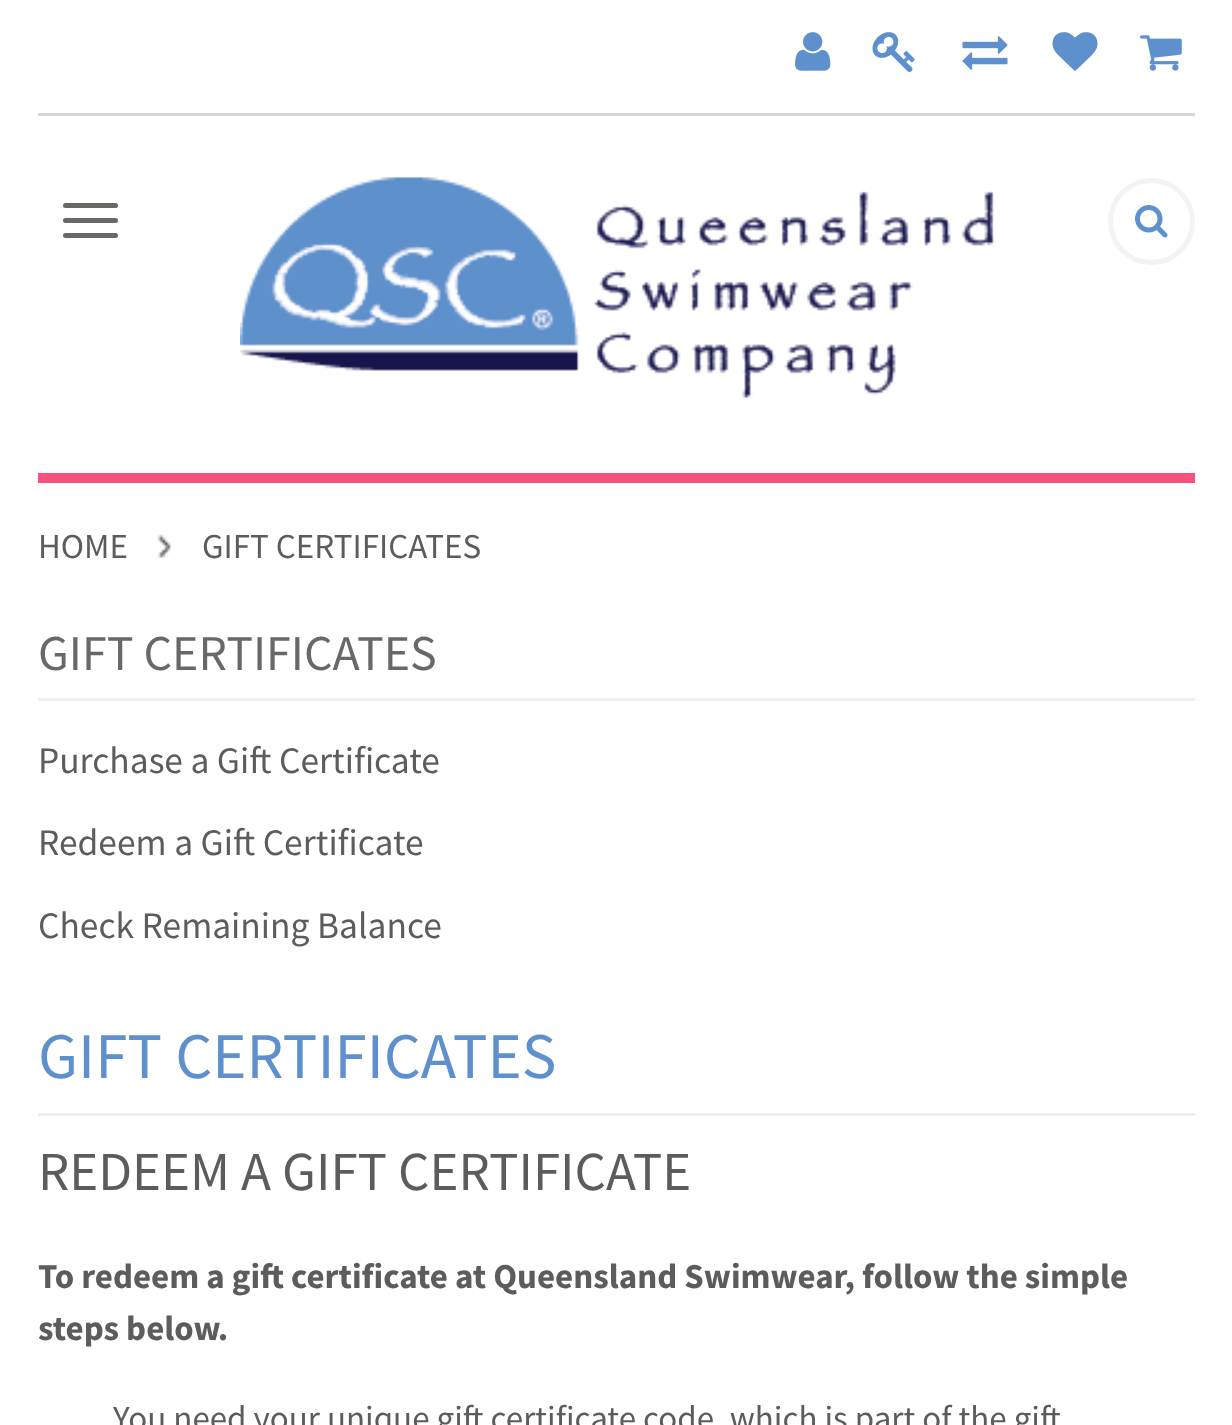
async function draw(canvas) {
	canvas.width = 1232;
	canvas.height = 1425;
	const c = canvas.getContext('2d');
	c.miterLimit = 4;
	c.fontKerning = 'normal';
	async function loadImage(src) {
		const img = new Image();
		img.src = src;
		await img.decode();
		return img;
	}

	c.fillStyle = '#fff';
	c.fillRect(0, 0, 1232, 1425);
	c.fillStyle = '#f7527d';
	c.fillRect(38, 473, 1157, 10);
	c.fillStyle = '#d6d6d6';
	c.fillRect(38, 113, 1157, 3);
	c.drawImage(await loadImage('img1.png'), 795, 32, 36, 39);
	c.drawImage(await loadImage('img2.png'), 872, 32, 43, 41);
	c.drawImage(await loadImage('img3.png'), 962, 36, 46, 34);
	c.drawImage(await loadImage('img4.png'), 1052, 32, 46, 39);
	c.drawImage(await loadImage('img5.png'), 1140, 35, 42, 36);
	c.fillStyle = '#696865';
	c.beginPath();
	c.roundRect(63, 203, 55, 5, 2.5);
	c.fill();
	c.beginPath();
	c.roundRect(63, 218, 55, 5, 2.5);
	c.fill();
	c.beginPath();
	c.roundRect(63, 233, 55, 5, 2.5);
	c.fill();
	c.drawImage(await loadImage('img6.png'), 240, 177, 755, 221);
	c.beginPath();
	c.arc(1151.5, 221.5, 41, 0, 2 * Math.PI);
	c.strokeStyle = '#f3f3f3';
	c.lineWidth = 5;
	c.stroke();
	c.drawImage(await loadImage('img7.png'), 1135, 205, 33, 33);
	c.drawImage(await loadImage('img8.png'), 157, 534, 14, 24);
	c.font = '35px Source Sans Pro';
	c.fillStyle = '#5c5c5c';
	c.fillText('HOME', 38, 558);
	c.fillText('GIFT CERTIFICATES', 202, 558);
	c.fillStyle = '#efefef';
	c.fillRect(38, 698, 1157, 3);
	c.font = '50px Source Sans Pro';
	c.fillStyle = '#696868';
	c.fillText('GIFT CERTIFICATES', 38, 670);
	c.font = '37.5px Source Sans Pro';
	c.fillStyle = '#5c5c5c';
	for (const [text, x, y] of [
		['Purchase a Gift Certificate', 38, 773],
		['Redeem a Gift Certificate', 38, 855],
		['Check Remaining Balance', 38, 938],
	]) {
		c.fillText(text, x, y);
	}
	c.fillStyle = '#eee';
	c.fillRect(38, 1113, 1157, 3);
	c.font = '65px Source Sans Pro';
	c.fillStyle = '#5e90cd';
	c.fillText('GIFT CERTIFICATES', 38, 1078);
	c.font = '55px Source Sans Pro';
	c.fillStyle = '#5c5c5c';
	c.fillText('REDEEM A GIFT CERTIFICATE', 38, 1190);
	c.font = 'bold 35px Source Sans Pro';
	c.fillText('To redeem a gift certificate at Queensland Swimwear, follow the simple', 38, 1288);
	c.fillText('steps below.', 38, 1340);
	c.font = '35px Source Sans Pro';
	c.fillText('You need your unique gift certificate code, which is part of the gift', 113, 1430);
}

draw(document.querySelector('canvas'));
